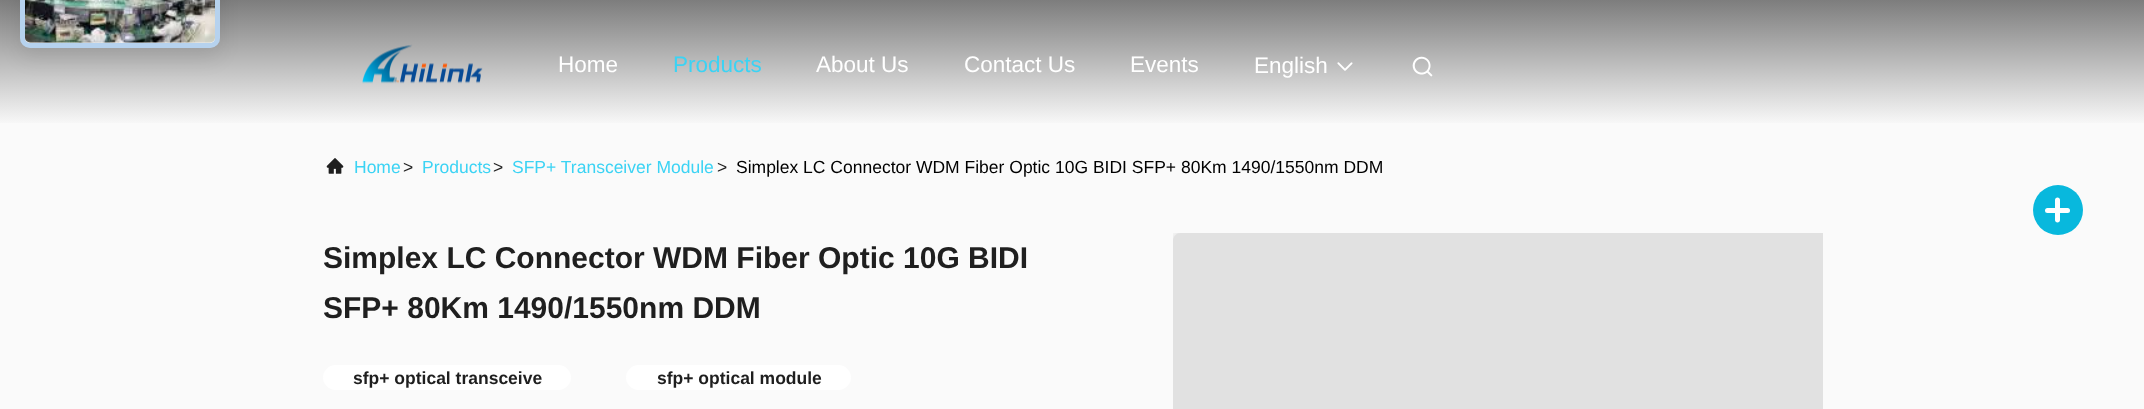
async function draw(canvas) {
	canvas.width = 2144;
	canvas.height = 409;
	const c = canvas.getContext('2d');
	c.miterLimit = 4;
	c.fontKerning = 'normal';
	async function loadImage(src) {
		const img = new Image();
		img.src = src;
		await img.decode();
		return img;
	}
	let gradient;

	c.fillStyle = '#fafafa';
	c.fillRect(0, 0, 2144, 409);
	gradient = c.createLinearGradient(1073, 0, 1073, 125);
	gradient.addColorStop(0, '#7d7d7d');
	gradient.addColorStop(1, '#f9f9f9');
	c.fillStyle = gradient;
	c.fillRect(0, 0, 2144, 123);
	c.fillStyle = '#00000014';
	c.filter = 'blur(10px)';
	c.beginPath();
	c.roundRect(20, -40, 200, 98, 10);
	c.fill();
	c.filter = 'none';
	c.fillStyle = '#eee';
	c.beginPath();
	c.roundRect(20, -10, 200, 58, 10);
	c.fill();
	c.beginPath();
	c.roundRect(22.5, -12.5, 195, 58, 7.5);
	c.strokeStyle = '#0478ed3d';
	c.lineWidth = 5;
	c.stroke();
	c.beginPath();
	c.roundRect(25, -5, 190, 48, 5);
	c.fill();
	c.drawImage(await loadImage('img1.png'), 25, 0, 190, 43);
	c.drawImage(await loadImage('img2.png'), 362, 44, 121, 40);
	c.font = '22.5px Liberation Sans';
	c.fillStyle = '#fff';
	c.fillText('Home', 558, 72);
	c.fillStyle = '#3bd3f4';
	c.fillText('Products', 673, 72);
	c.fillStyle = '#fff';
	for (const [text, x, y] of [
		['About Us', 816, 72],
		['Contact Us', 964, 72],
		['Events', 1130, 72],
		['English', 1254, 73],
	]) {
		c.fillText(text, x, y);
	}
	c.drawImage(await loadImage('img3.png'), 1337, 62, 16, 9);
	c.drawImage(await loadImage('img4.png'), 1412, 56, 21, 21);
	c.drawImage(await loadImage('img5.png'), 326, 158, 18, 16);
	c.font = '17.5px Liberation Sans';
	c.fillStyle = '#3bd3f4';
	c.fillText('Home', 354, 173);
	c.fillStyle = '#1f1f1f';
	c.fillText('>', 403, 173);
	c.fillStyle = '#3bd3f4';
	c.fillText('Products', 422, 173);
	c.fillStyle = '#1f1f1f';
	c.fillText('>', 493, 173);
	c.fillStyle = '#3bd3f4';
	c.fillText('SFP+ Transceiver Module', 512, 173);
	c.fillStyle = '#1f1f1f';
	c.fillText('>', 717, 173);
	c.fillStyle = '#000';
	c.fillText('Simplex LC Connector WDM Fiber Optic 10G BIDI SFP+ 80Km 1490/1550nm DDM', 736, 173);
	c.font = 'bold 30px Liberation Sans';
	c.fillStyle = '#1f1f1f';
	c.fillText('Simplex LC Connector WDM Fiber Optic 10G BIDI', 323, 268);
	c.fillText('SFP+ 80Km 1490/1550nm DDM', 323, 318);
	c.fillStyle = '#fff';
	c.beginPath();
	c.roundRect(323, 365, 248, 25, 12.5);
	c.fill();
	c.font = 'bold 17.5px Liberation Sans';
	c.fillStyle = '#1f1f1f';
	c.fillText('sfp+ optical transceive', 353, 384);
	c.fillStyle = '#fff';
	c.beginPath();
	c.roundRect(626, 365, 225, 25, 12.5);
	c.fill();
	c.fillStyle = '#1f1f1f';
	c.fillText('sfp+ optical module', 657, 384);
	c.save();
	c.beginPath();
	c.rect(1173, 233, 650, 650);
	c.clip();
	c.fillStyle = '#00000026';
	c.filter = 'blur(4px)';
	c.beginPath();
	c.roundRect(1173, 233, 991, 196, 8);
	c.fill();
	c.filter = 'none';
	c.restore();
	c.fillStyle = '#e1e1e1';
	c.beginPath();
	c.moveTo(1181, 233);
	c.lineTo(1823, 233);
	c.lineTo(1823, 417);
	c.lineTo(1181, 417);
	c.bezierCurveTo(1176.5, 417, 1173, 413.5, 1173, 409);
	c.lineTo(1173, 241);
	c.bezierCurveTo(1173, 236.5, 1176.5, 233, 1181, 233);
	c.closePath();
	c.fill();
	c.fillStyle = '#08b8dd';
	c.beginPath();
	c.arc(2058, 210, 25, 0, 2 * Math.PI);
	c.fill();
	c.fillStyle = '#fff';
	c.beginPath();
	c.roundRect(2045, 208, 25, 5, 2.5);
	c.fill();
	c.beginPath();
	c.moveTo(2060, 200);
	c.lineTo(2060, 220);
	c.bezierCurveTo(2060, 221.5, 2059, 222.5, 2057.5, 222.5);
	c.bezierCurveTo(2056, 222.5, 2055, 221.5, 2055, 220);
	c.lineTo(2055, 200);
	c.bezierCurveTo(2055, 198.5, 2056, 197.5, 2057.5, 197.5);
	c.bezierCurveTo(2059, 197.5, 2060, 198.5, 2060, 200);
	c.closePath();
	c.fill();
}

draw(document.querySelector('canvas'));
